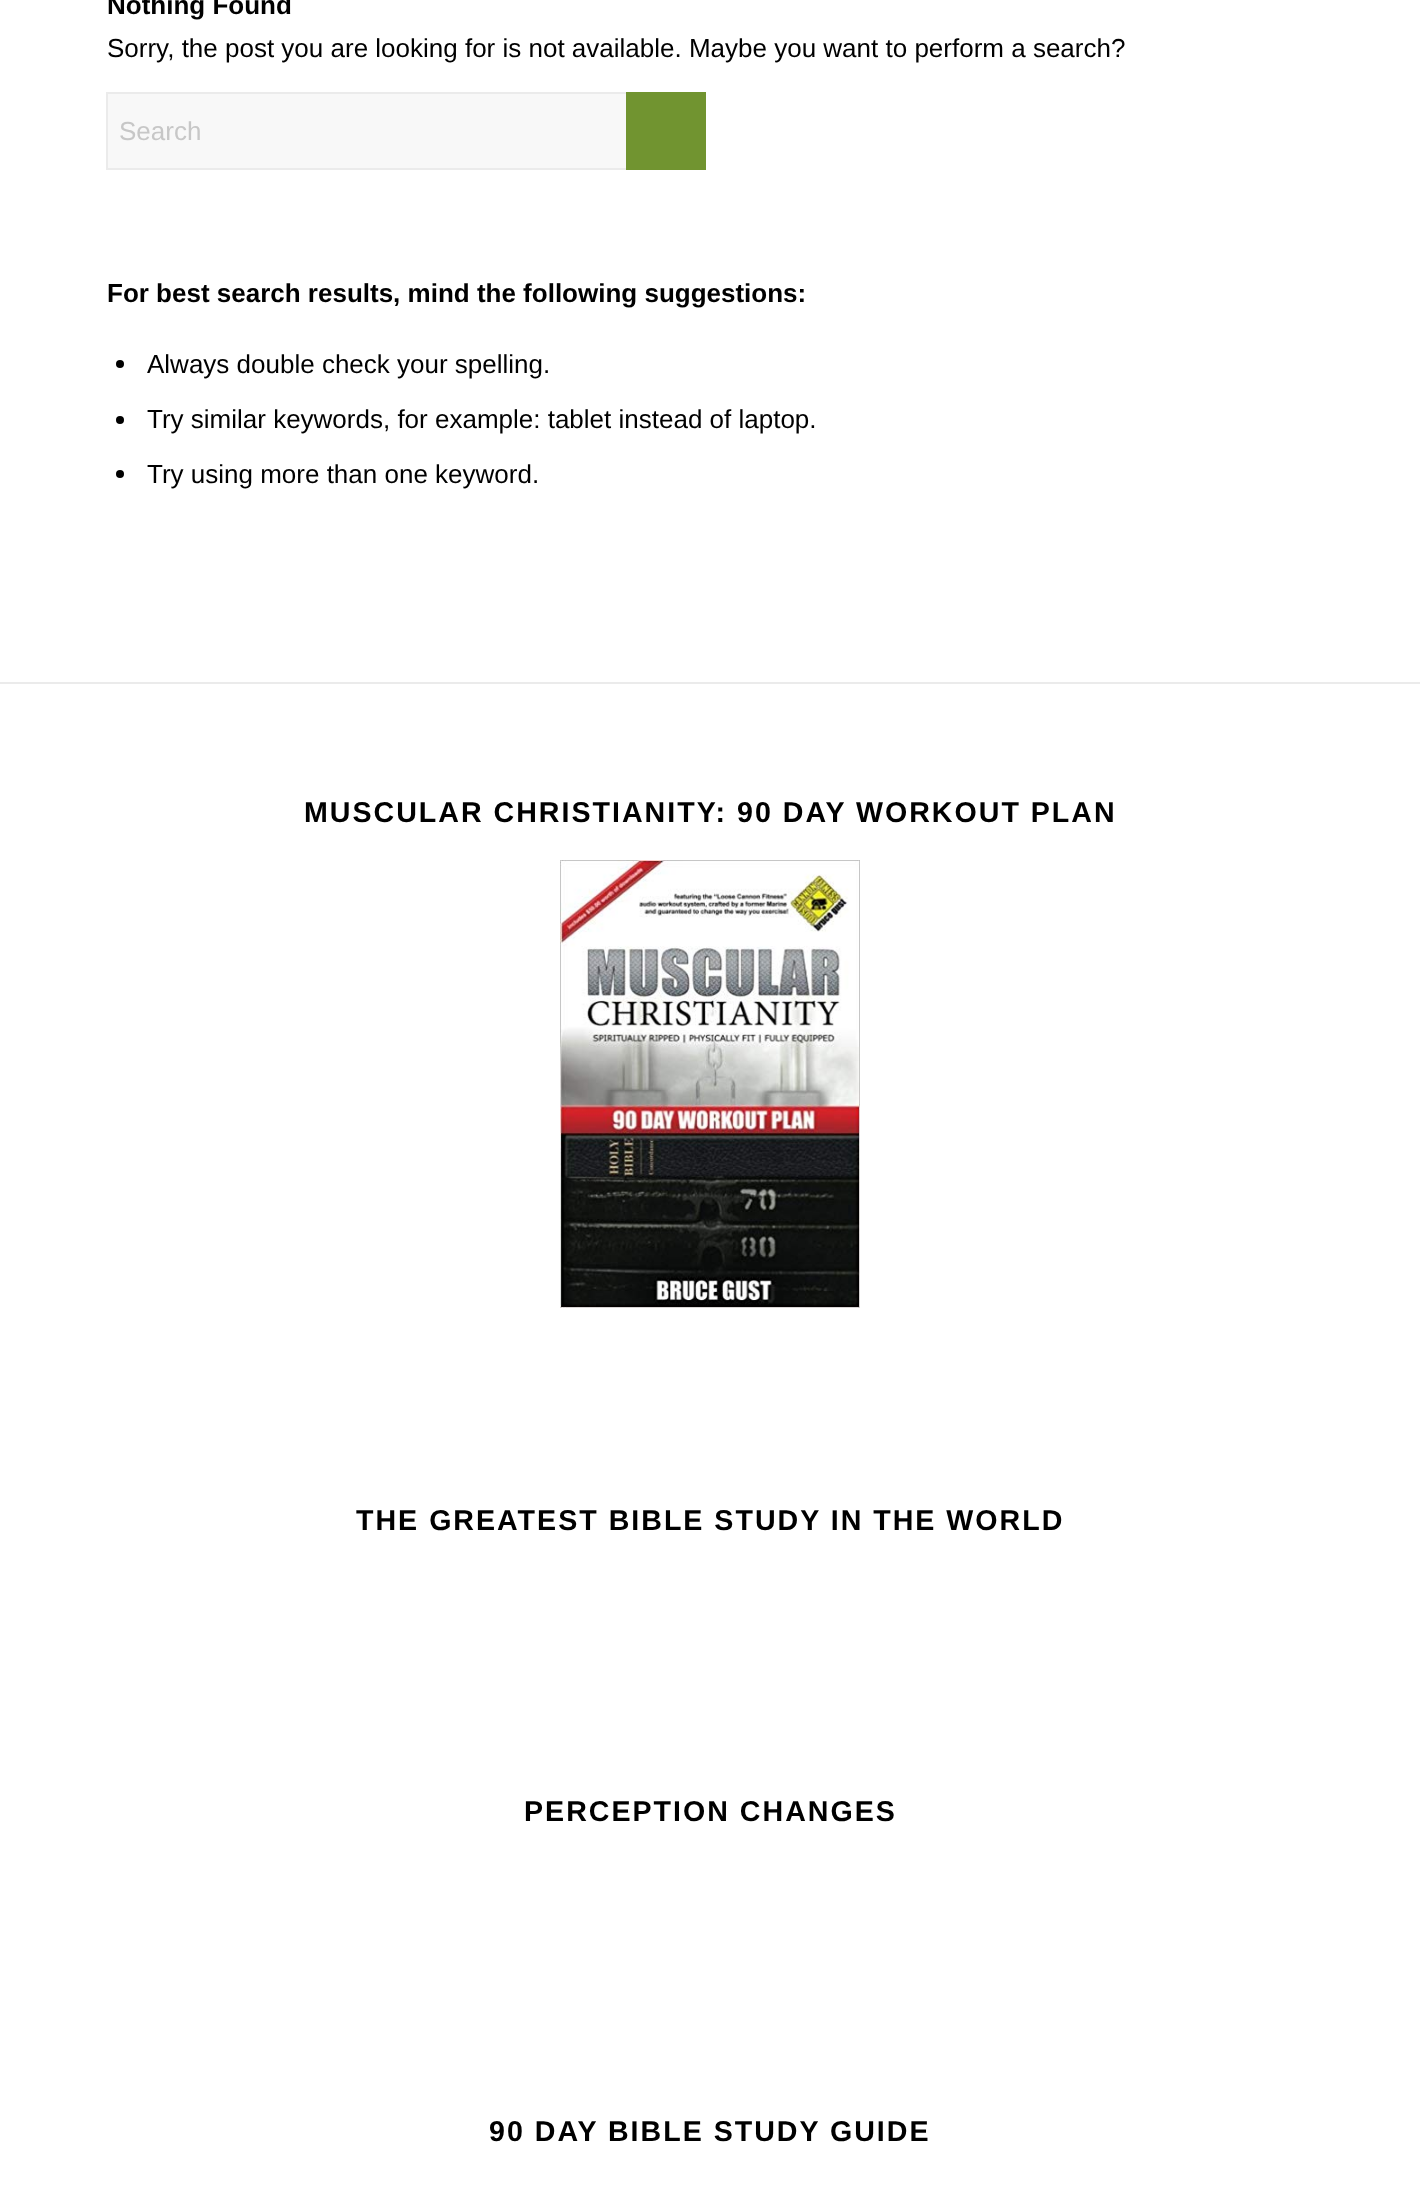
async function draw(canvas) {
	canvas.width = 1420;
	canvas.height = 2203;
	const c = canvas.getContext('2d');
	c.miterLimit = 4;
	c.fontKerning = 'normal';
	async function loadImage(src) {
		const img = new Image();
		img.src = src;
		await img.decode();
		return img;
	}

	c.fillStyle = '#fff';
	c.fillRect(0, 0, 1420, 2203);
	c.font = 'bold 26px Liberation Sans';
	c.fillStyle = '#000';
	c.fillText('Nothing Found', 107, 14);
	c.font = '26px Liberation Sans';
	c.fillText('Sorry, the post you are looking for is not available. Maybe you want to perform a search?', 107, 57);
	c.fillStyle = '#f8f8f8';
	c.fillRect(108, 94, 518, 74);
	c.strokeStyle = '#ebebeb';
	c.lineWidth = 2;
	c.strokeRect(107, 93, 598, 76);
	c.fillStyle = '#c7c7c7';
	c.fillText('Search', 119, 140);
	c.fillStyle = '#719430';
	c.fillRect(626, 92, 80, 78);
	c.font = 'bold 26px Liberation Sans';
	c.fillStyle = '#000';
	c.fillText('For best search results, mind the following suggestions:', 107, 302);
	c.beginPath();
	c.arc(120, 364, 4, 0, 2 * Math.PI);
	c.fill();
	c.font = '26px Liberation Sans';
	c.fillText('Always double check your spelling.', 147, 373);
	c.beginPath();
	c.arc(120, 420, 4, 0, 2 * Math.PI);
	c.fill();
	c.fillText('Try similar keywords, for example: tablet instead of laptop.', 147, 428);
	c.beginPath();
	c.arc(120, 474, 4, 0, 2 * Math.PI);
	c.fill();
	c.fillText('Try using more than one keyword.', 147, 483);
	c.fillStyle = '#ebebeb';
	c.fillRect(0, 682, 1420, 2);
	c.letterSpacing = '2px';
	c.font = 'bold 28.6px Liberation Sans';
	c.fillStyle = '#000';
	c.fillText('MUSCULAR CHRISTIANITY: 90 DAY WORKOUT PLAN', 304, 822);
	c.drawImage(await loadImage('img1.png'), 560, 860, 300, 448);
	for (const [text, x, y] of [
		['THE GREATEST BIBLE STUDY IN THE WORLD', 356, 1530],
		['PERCEPTION CHANGES', 524, 1821],
		['90 DAY BIBLE STUDY GUIDE', 489, 2141],
	]) {
		c.fillText(text, x, y);
	}
}

draw(document.querySelector('canvas'));
